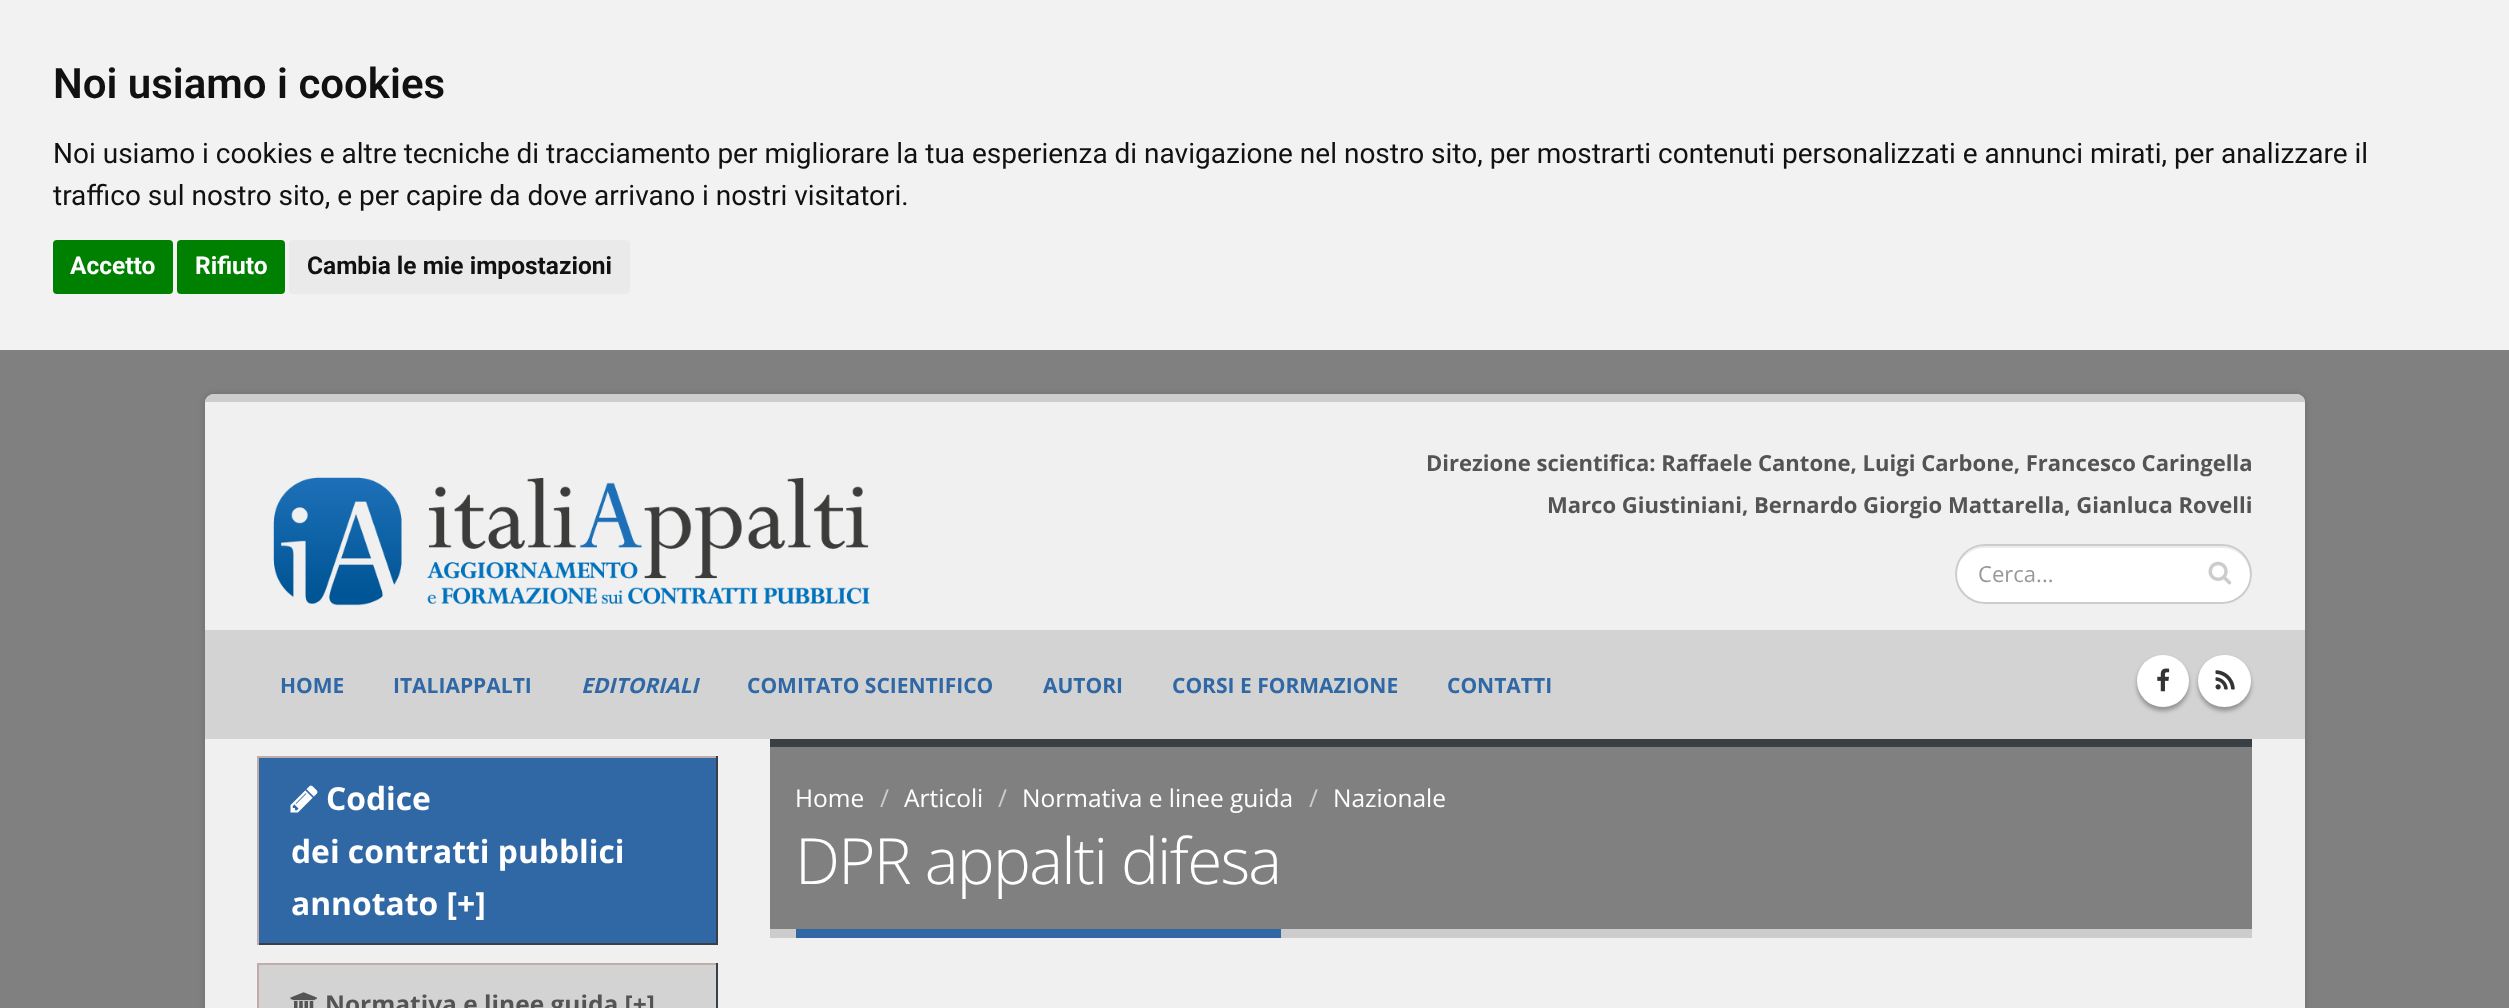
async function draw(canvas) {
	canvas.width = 2509;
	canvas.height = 1008;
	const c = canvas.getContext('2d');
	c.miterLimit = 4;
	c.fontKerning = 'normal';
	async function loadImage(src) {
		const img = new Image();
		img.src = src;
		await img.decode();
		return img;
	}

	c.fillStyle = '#808080';
	c.fillRect(0, 0, 2509, 1008);
	c.fillStyle = '#f2f2f2';
	c.fillRect(0, 0, 2509, 350);
	c.font = '600 42px Roboto';
	c.fillStyle = '#111';
	c.fillText('Noi usiamo i cookies', 53, 98);
	c.font = '28px Roboto';
	c.fillText('Noi usiamo i cookies e altre tecniche di tracciamento per migliorare la tua esperienza di navigazione nel nostro sito, per mostrarti contenuti personalizzati e annunci mirati, per analizzare il', 53, 163);
	c.fillText('traffico sul nostro sito, e per capire da dove arrivano i nostri visitatori.', 53, 205);
	c.fillStyle = '#008000';
	c.beginPath();
	c.roundRect(53, 240, 120, 54, 4);
	c.fill();
	c.font = 'bold 24.5px Roboto';
	c.fillStyle = '#fff';
	c.fillText('Accetto', 70, 274);
	c.fillStyle = '#008000';
	c.beginPath();
	c.roundRect(177, 240, 108, 54, 4);
	c.fill();
	c.fillStyle = '#fff';
	c.fillText('Rifiuto', 195, 274);
	c.fillStyle = '#eaeaea';
	c.beginPath();
	c.roundRect(289, 240, 341, 54, 4);
	c.fill();
	c.fillStyle = '#111';
	c.fillText('Cambia le mie impostazioni', 307, 274);
	c.fillStyle = '#00000026';
	c.filter = 'blur(3.5px)';
	c.beginPath();
	c.roundRect(205, 394, 2100, 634, 9);
	c.fill();
	c.filter = 'none';
	c.fillStyle = '#f0f0f0';
	c.beginPath();
	c.roundRect(205, 394, 2100, 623, 9);
	c.fill();
	c.fillStyle = '#ccc';
	c.beginPath();
	c.moveTo(214, 394);
	c.lineTo(2296, 394);
	c.bezierCurveTo(2301, 394, 2305, 397, 2305, 402);
	c.lineTo(205, 402);
	c.bezierCurveTo(205, 398, 209, 394, 214, 394);
	c.closePath();
	c.fill();
	c.drawImage(await loadImage('img1.png'), 273, 477, 597, 129);
	c.font = 'bold 22.05px Open Sans';
	c.fillStyle = '#545454';
	c.fillText('Direzione scientifica: Raffaele Cantone, Luigi Carbone, Francesco Caringella', 1426, 471);
	c.fillText('Marco Giustiniani, Bernardo Giorgio Mattarella, Gianluca Rovelli', 1547, 513);
	c.fillStyle = '#fff';
	c.beginPath();
	c.roundRect(1955, 544, 297, 60, 30);
	c.fill();
	c.fillStyle = '#ececec';
	c.beginPath();
	c.moveTo(1984, 548);
	c.lineTo(2222, 548);
	c.bezierCurveTo(2238, 548, 2250, 560, 2250, 576);
	c.bezierCurveTo(2250, 580, 2249, 584, 2248, 588);
	c.bezierCurveTo(2250, 584, 2251, 579, 2251, 574);
	c.bezierCurveTo(2251, 559, 2238, 546, 2223, 546);
	c.lineTo(1985, 546);
	c.bezierCurveTo(1974, 546, 1964, 553, 1960, 562);
	c.bezierCurveTo(1965, 554, 1974, 548, 1984, 548);
	c.closePath();
	c.fill();
	c.beginPath();
	c.roundRect(1956, 545, 295, 58, 29);
	c.strokeStyle = '#ccc';
	c.lineWidth = 2;
	c.stroke();
	c.font = '22.05px Open Sans';
	c.fillStyle = '#999';
	c.fillText('Cerca...', 1978, 582);
	c.drawImage(await loadImage('img2.png'), 2208, 561, 24, 24);
	c.fillStyle = '#d3d3d3';
	c.fillRect(205, 630, 2100, 109);
	c.font = 'bold 21px Open Sans';
	c.fillStyle = '#2f68a4';
	c.fillText('HOME', 280, 693);
	c.fillText('ITALIAPPALTI', 393, 693);
	c.font = 'italic bold 21px Open Sans';
	c.fillText('EDITORIALI', 581, 693);
	c.font = 'bold 21px Open Sans';
	for (const [text, x, y] of [
		['COMITATO SCIENTIFICO', 747, 693],
		['AUTORI', 1043, 693],
		['CORSI E FORMAZIONE', 1172, 693],
		['CONTATTI', 1447, 693],
	]) {
		c.fillText(text, x, y);
	}
	c.fillStyle = '#0000004d';
	c.filter = 'blur(2px)';
	c.beginPath();
	c.roundRect(2137, 658, 52, 53, 26);
	c.fill();
	c.filter = 'none';
	c.fillStyle = '#fff';
	c.beginPath();
	c.arc(2163, 681, 26, 0, 2 * Math.PI);
	c.fill();
	c.drawImage(await loadImage('img3.png'), 2157, 668, 13, 24);
	c.fillStyle = '#0000004d';
	c.filter = 'blur(2px)';
	c.beginPath();
	c.roundRect(2198, 658, 53, 53, 26.5);
	c.fill();
	c.filter = 'none';
	c.fillStyle = '#fff';
	c.beginPath();
	c.roundRect(2198, 655, 53, 52, 26);
	c.fill();
	c.drawImage(await loadImage('img4.png'), 2215, 670, 20, 20);
	for (const [x, y, w, h, color] of [
		[259, 758, 457, 185, '#2f68a4'],
		[257, 756, 461, 2, '#c2acab'],
		[716, 756, 2, 189, '#383f48'],
		[257, 943, 461, 2, '#383f48'],
		[257, 756, 2, 189, '#c2acab'],
	]) {
		c.fillStyle = color;
		c.fillRect(x, y, w, h);
	}
	c.drawImage(await loadImage('img5.png'), 290, 785, 28, 28);
	c.font = 'bold 31.8px Open Sans';
	c.fillStyle = '#fff';
	for (const [text, x, y] of [
		['Codice', 326, 810],
		['dei contratti pubblici', 291, 863],
		['annotato [+]', 291, 915],
	]) {
		c.fillText(text, x, y);
	}
	for (const [x, y, w, h, color] of [
		[259, 965, 457, 43, '#d3d3d3'],
		[257, 963, 461, 2, '#c2acab'],
		[716, 963, 2, 45, '#383f48'],
		[257, 963, 2, 45, '#c2acab'],
	]) {
		c.fillStyle = color;
		c.fillRect(x, y, w, h);
	}
	c.drawImage(await loadImage('img6.png'), 290, 992, 27, 16);
	c.font = 'bold 24.5px Open Sans';
	c.fillStyle = '#545454';
	c.fillText('Normativa e linee guida [+]', 325, 1013);
	for (const [x, y, w, h, color] of [
		[770, 747, 1482, 182, '#808080'],
		[770, 739, 1482, 8, '#384045'],
		[770, 929, 1482, 9, '#ccc'],
	]) {
		c.fillStyle = color;
		c.fillRect(x, y, w, h);
	}
	c.font = '24.5px Open Sans';
	c.fillStyle = '#fff';
	c.fillText('Home', 795, 807);
	c.fillStyle = '#ccc';
	c.fillText('/', 880, 807);
	c.fillStyle = '#fff';
	c.fillText('Articoli', 904, 807);
	c.fillStyle = '#ccc';
	c.fillText('/', 998, 807);
	c.fillStyle = '#fff';
	c.fillText('Normativa e linee guida', 1022, 807);
	c.fillStyle = '#ccc';
	c.fillText('/', 1309, 807);
	c.fillStyle = '#fff';
	c.fillText('Nazionale', 1333, 807);
	c.fillStyle = '#2f68a4';
	c.fillRect(796, 929, 485, 9);
	c.letterSpacing = '-1.75px';
	c.font = '300 63.75px Open Sans';
	c.fillStyle = '#fff';
	c.fillText('DPR appalti difesa', 795, 884);
}

draw(document.querySelector('canvas'));
